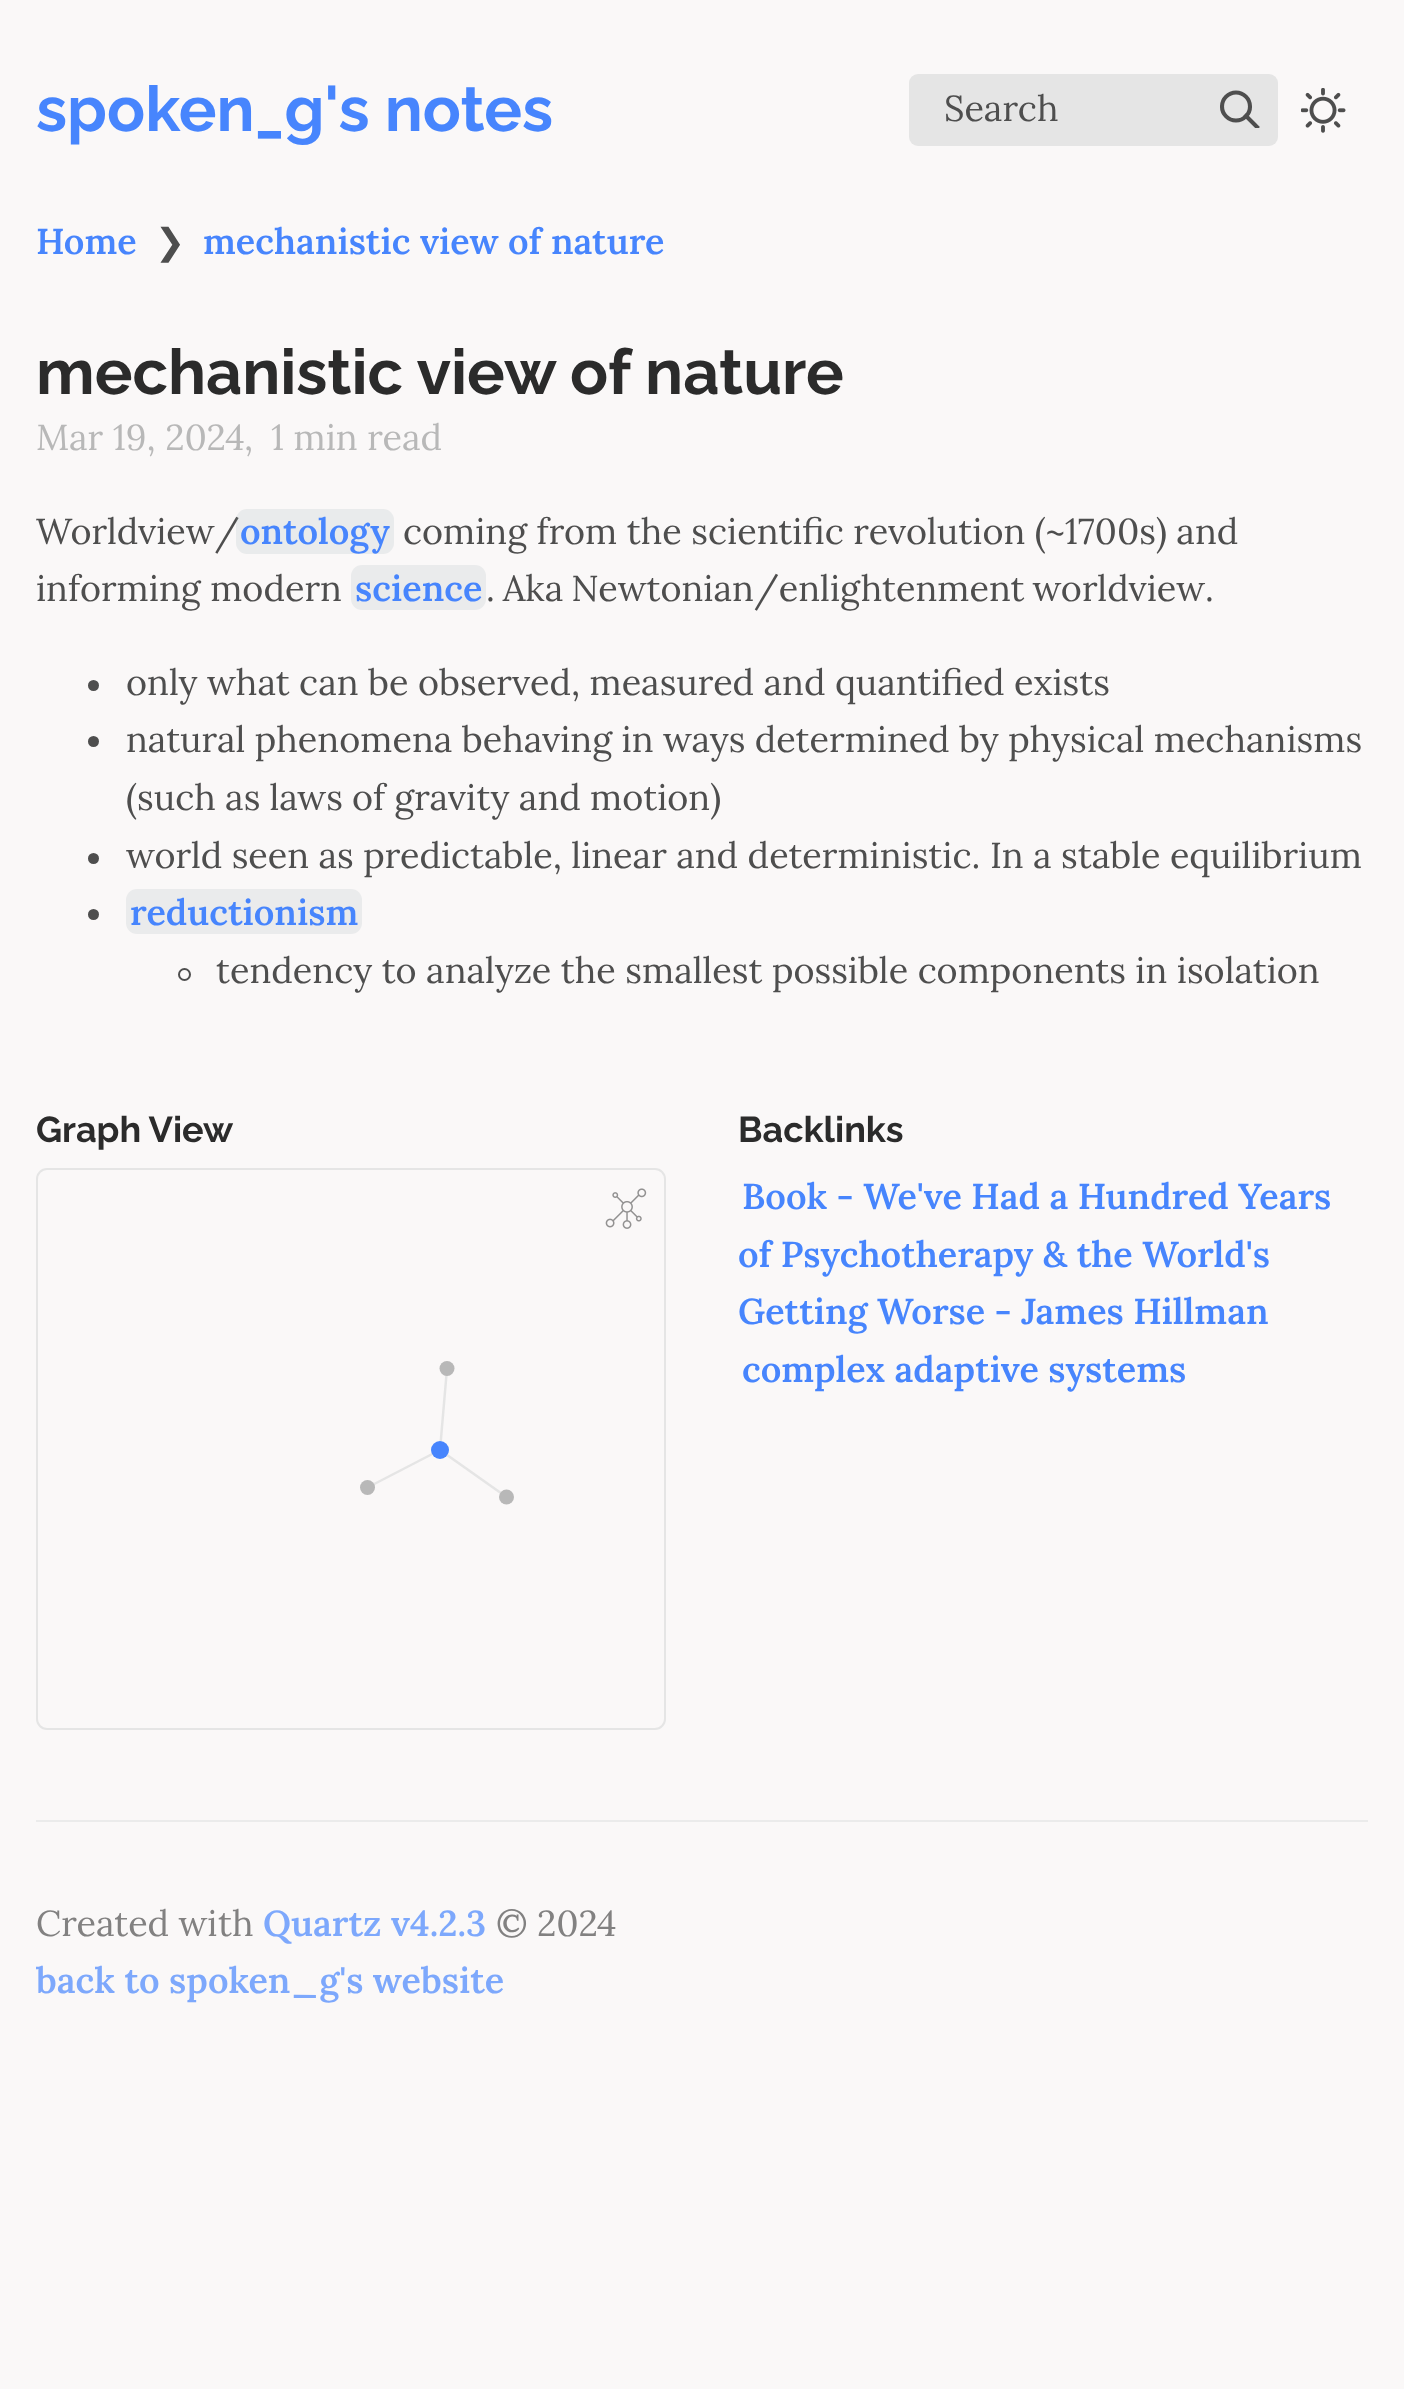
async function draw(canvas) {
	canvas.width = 1404;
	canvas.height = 2389;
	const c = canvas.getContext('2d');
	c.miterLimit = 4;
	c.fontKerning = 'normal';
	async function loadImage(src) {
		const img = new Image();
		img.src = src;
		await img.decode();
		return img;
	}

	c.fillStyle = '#faf8f8';
	c.fillRect(0, 0, 1404, 2389);
	c.font = 'bold 63px Raleway';
	c.fillStyle = '#4785fd';
	c.fillText('spoken_g\'s notes', 36, 131);
	c.fillStyle = '#e5e5e5';
	c.beginPath();
	c.roundRect(909, 74, 369, 72, 9);
	c.fill();
	c.font = '36px Lora';
	c.fillStyle = '#4e4e4e';
	c.fillText('Search', 944, 121);
	c.save();
	c.beginPath();
	c.rect(1220, 90, 40, 38);
	c.clip();
	c.beginPath();
	c.moveTo(1257, 127);
	c.lineTo(1246, 116);
	c.strokeStyle = '#4e4e4e';
	c.lineWidth = 4.1;
	c.lineCap = 'square';
	c.stroke();
	c.restore();
	c.beginPath();
	c.arc(1236, 106.5, 14, 0, 2 * Math.PI);
	c.strokeStyle = '#4e4e4e';
	c.lineWidth = 4.1;
	c.stroke();
	c.drawImage(await loadImage('img1.png'), 1301, 88, 45, 45);
	c.font = '600 36px Lora';
	c.fillStyle = '#4785fd';
	c.fillText('Home', 36, 254);
	c.font = '36px DejaVu Sans';
	c.fillStyle = '#4e4e4e';
	c.fillText('❯', 155, 254);
	c.font = '600 36px Lora';
	c.fillStyle = '#4785fd';
	c.fillText('mechanistic view of nature', 203, 254);
	c.font = 'bold 63px Raleway';
	c.fillStyle = '#2b2b2b';
	c.fillText('mechanistic view of nature', 36, 394);
	c.font = '36px Lora';
	c.fillStyle = '#b8b8b8';
	for (const [text, x, y] of [
		['Mar 19, 2024', 36, 450],
		[',', 244, 450],
		['1 min read', 271, 450],
	]) {
		c.fillText(text, x, y);
	}
	c.fillStyle = '#4e4e4e';
	c.fillText('Worldview/', 36, 544);
	c.fillStyle = '#8f9fa926';
	c.beginPath();
	c.roundRect(236, 509, 158, 45, 11);
	c.fill();
	c.font = '600 36px Lora';
	c.fillStyle = '#4785fd';
	c.fillText('ontology', 240, 544);
	c.font = '36px Lora';
	c.fillStyle = '#4e4e4e';
	c.fillText('coming from the scientific revolution (~1700s) and', 403, 544);
	c.fillText('informing modern', 36, 601);
	c.fillStyle = '#eaebec';
	c.beginPath();
	c.roundRect(351, 565, 135, 45, 11);
	c.fill();
	c.font = '600 36px Lora';
	c.fillStyle = '#4785fd';
	c.fillText('science', 355, 601);
	c.wordSpacing = '-1.5px';
	c.font = '36px Lora';
	c.fillStyle = '#4e4e4e';
	c.fillText('. Aka Newtonian/enlightenment worldview.', 486, 601);
	c.beginPath();
	c.arc(93.5, 685.5, 5.5, 0, 2 * Math.PI);
	c.fill();
	c.wordSpacing = '0px';
	c.fillText('only what can be observed, measured and quantified exists', 126, 695);
	c.beginPath();
	c.arc(93.5, 741.5, 5.5, 0, 2 * Math.PI);
	c.fill();
	c.fillText('natural phenomena behaving in ways determined by physical mechanisms', 126, 752);
	c.wordSpacing = '-0.25px';
	c.fillText('(such as laws of gravity and motion)', 126, 810);
	c.beginPath();
	c.arc(93.5, 858.5, 5.5, 0, 2 * Math.PI);
	c.fill();
	c.wordSpacing = '0px';
	c.fillText('world seen as predictable, linear and deterministic. In a stable equilibrium', 126, 868);
	c.beginPath();
	c.arc(93.5, 914.5, 5.5, 0, 2 * Math.PI);
	c.fill();
	c.fillStyle = '#eaebec';
	c.beginPath();
	c.roundRect(126, 889, 236, 45, 11);
	c.fill();
	c.font = '600 36px Lora';
	c.fillStyle = '#4785fd';
	c.fillText('reductionism', 130, 925);
	c.beginPath();
	c.arc(184.5, 974.5, 5.5, 0, 2 * Math.PI);
	c.lineWidth = 2;
	c.stroke();
	c.font = '36px Lora';
	c.fillStyle = '#4e4e4e';
	c.fillText('tendency to analyze the smallest possible components in isolation', 216, 983);
	c.font = 'bold 36px Raleway';
	c.fillStyle = '#2b2b2b';
	c.fillText('Graph View', 36, 1142);
	c.beginPath();
	c.roundRect(37, 1169, 628, 560, 10);
	c.strokeStyle = '#e5e5e5';
	c.stroke();
	c.drawImage(await loadImage('img2.png'), 605, 1188, 42, 41);
	c.beginPath();
	c.moveTo(447, 1368.5);
	c.lineTo(440, 1450);
	c.lineWidth = 2.5;
	c.stroke();
	c.fillStyle = '#b8b8b8';
	c.beginPath();
	c.arc(447, 1368.5, 7.5, 0, 2 * Math.PI);
	c.fill();
	c.beginPath();
	c.moveTo(506.5, 1497);
	c.lineTo(440, 1450);
	c.stroke();
	c.beginPath();
	c.moveTo(440, 1450);
	c.lineTo(367.5, 1487.5);
	c.stroke();
	c.fillStyle = '#4785fd';
	c.beginPath();
	c.arc(440, 1450, 9, 0, 2 * Math.PI);
	c.fill();
	c.fillStyle = '#b8b8b8';
	c.beginPath();
	c.arc(367.5, 1487.5, 7.5, 0, 2 * Math.PI);
	c.fill();
	c.beginPath();
	c.arc(506.5, 1497, 7.5, 0, 2 * Math.PI);
	c.fill();
	c.fillStyle = '#2b2b2b';
	c.fillText('Backlinks', 738, 1142);
	c.font = '600 36px Lora';
	c.fillStyle = '#4785fd';
	for (const [text, x, y] of [
		['Book - We\'ve Had a Hundred Years', 742, 1209],
		['of Psychotherapy & the World\'s', 738, 1267],
		['Getting Worse - James Hillman', 738, 1324],
		['complex adaptive systems', 742, 1382],
	]) {
		c.fillText(text, x, y);
	}
	c.fillStyle = '#ebebeb';
	c.fillRect(36, 1820, 1332, 2);
	c.font = '36px Lora';
	c.fillStyle = '#828181';
	c.fillText('Created with', 36, 1936);
	c.font = '600 36px Lora';
	c.fillStyle = '#7da8fc';
	c.fillText('Quartz v4.2.3', 263, 1936);
	c.font = '36px Lora';
	c.fillStyle = '#828181';
	c.fillText('© 2024', 496, 1936);
	c.font = '600 36px Lora';
	c.fillStyle = '#7da8fc';
	c.fillText('back to spoken_g\'s website', 36, 1993);
}

draw(document.querySelector('canvas'));
